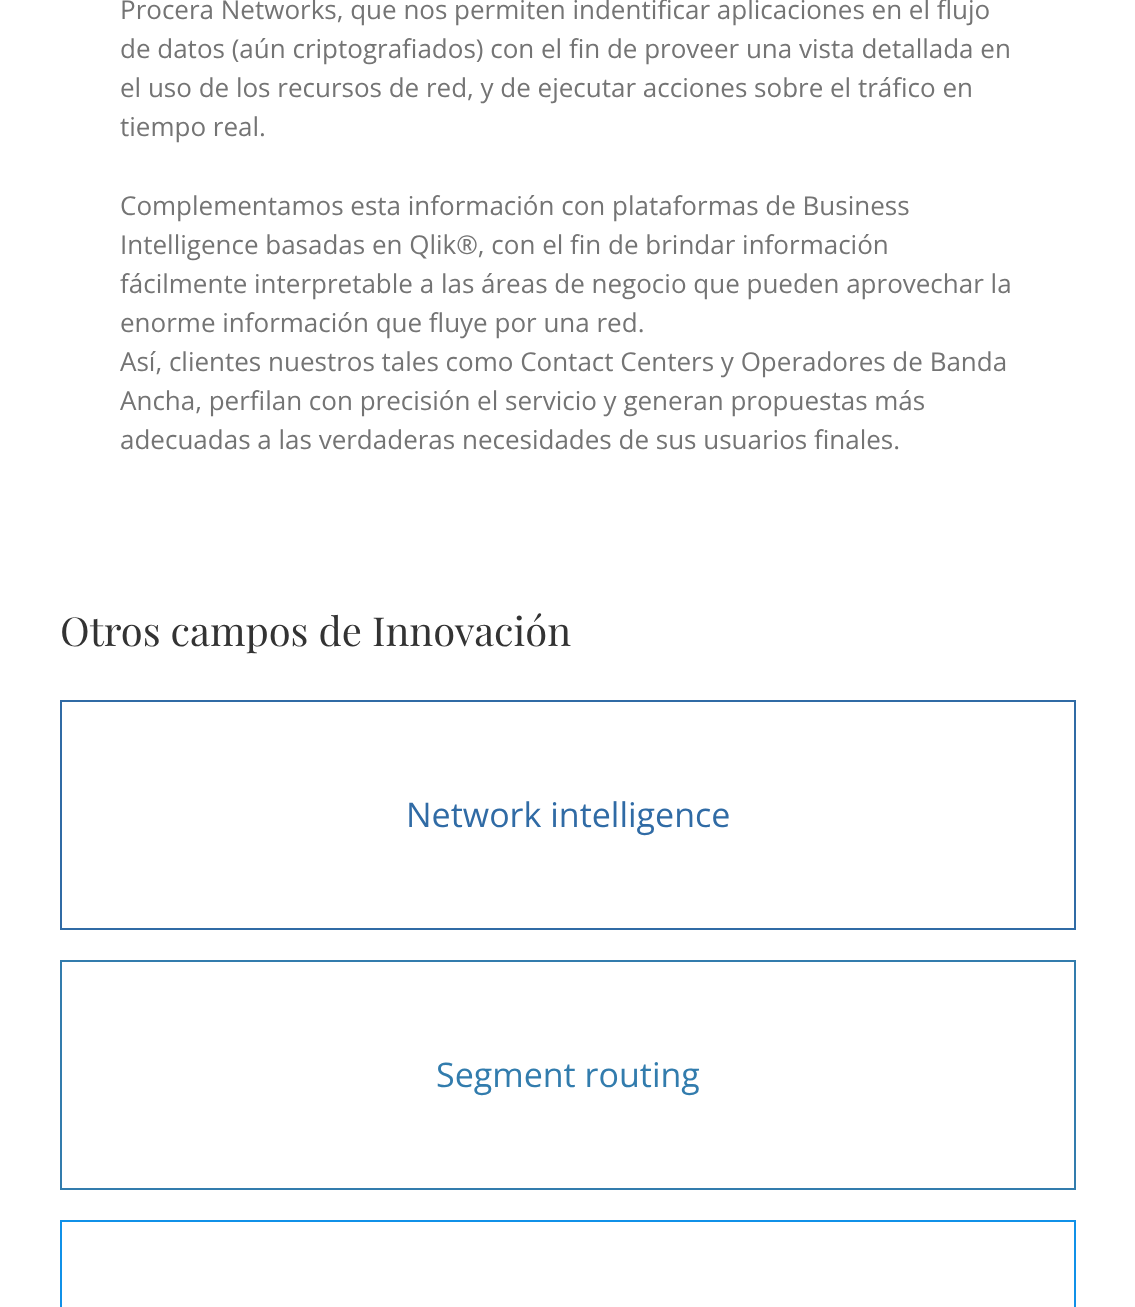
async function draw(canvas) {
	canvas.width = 1135;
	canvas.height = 1307;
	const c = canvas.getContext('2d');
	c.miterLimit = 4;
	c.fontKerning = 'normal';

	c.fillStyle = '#fff';
	c.fillRect(0, 0, 1135, 1307);
	c.font = '26px Open Sans';
	c.fillStyle = '#747474';
	for (const [text, x, y] of [
		['Procera Networks, que nos permiten indentificar aplicaciones en el flujo', 120, 19],
		['de datos (aún criptografiados) con el fin de proveer una vista detallada en', 120, 58],
		['el uso de los recursos de red, y de ejecutar acciones sobre el tráfico en', 120, 97],
		['tiempo real.', 120, 136],
		['Complementamos esta información con plataformas de Business', 120, 215],
		['Intelligence basadas en Qlik®, con el fin de brindar información', 120, 254],
		['fácilmente interpretable a las áreas de negocio que pueden aprovechar la', 120, 293],
		['enorme información que fluye por una red.', 120, 332],
		['Así, clientes nuestros tales como Contact Centers y Operadores de Banda', 120, 371],
		['Ancha, perfilan con precisión el servicio y generan propuestas más', 120, 410],
		['adecuadas a las verdaderas necesidades de sus usuarios finales.', 120, 449],
	]) {
		c.fillText(text, x, y);
	}
	c.font = '40px Playfair Display';
	c.fillStyle = '#333';
	c.fillText('Otros campos de Innovación', 60, 646);
	c.strokeStyle = '#306ba5';
	c.lineWidth = 2;
	c.strokeRect(61, 701, 1014, 228);
	c.font = '34px Open Sans';
	c.fillStyle = '#306ba5';
	c.fillText('Network intelligence', 406, 827);
	c.strokeStyle = '#327cad';
	c.strokeRect(61, 961, 1014, 228);
	c.fillStyle = '#327cad';
	c.fillText('Segment routing', 436, 1087);
	c.strokeStyle = '#1091e8';
	c.strokeRect(61, 1221, 1014, 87);
}

draw(document.querySelector('canvas'));
